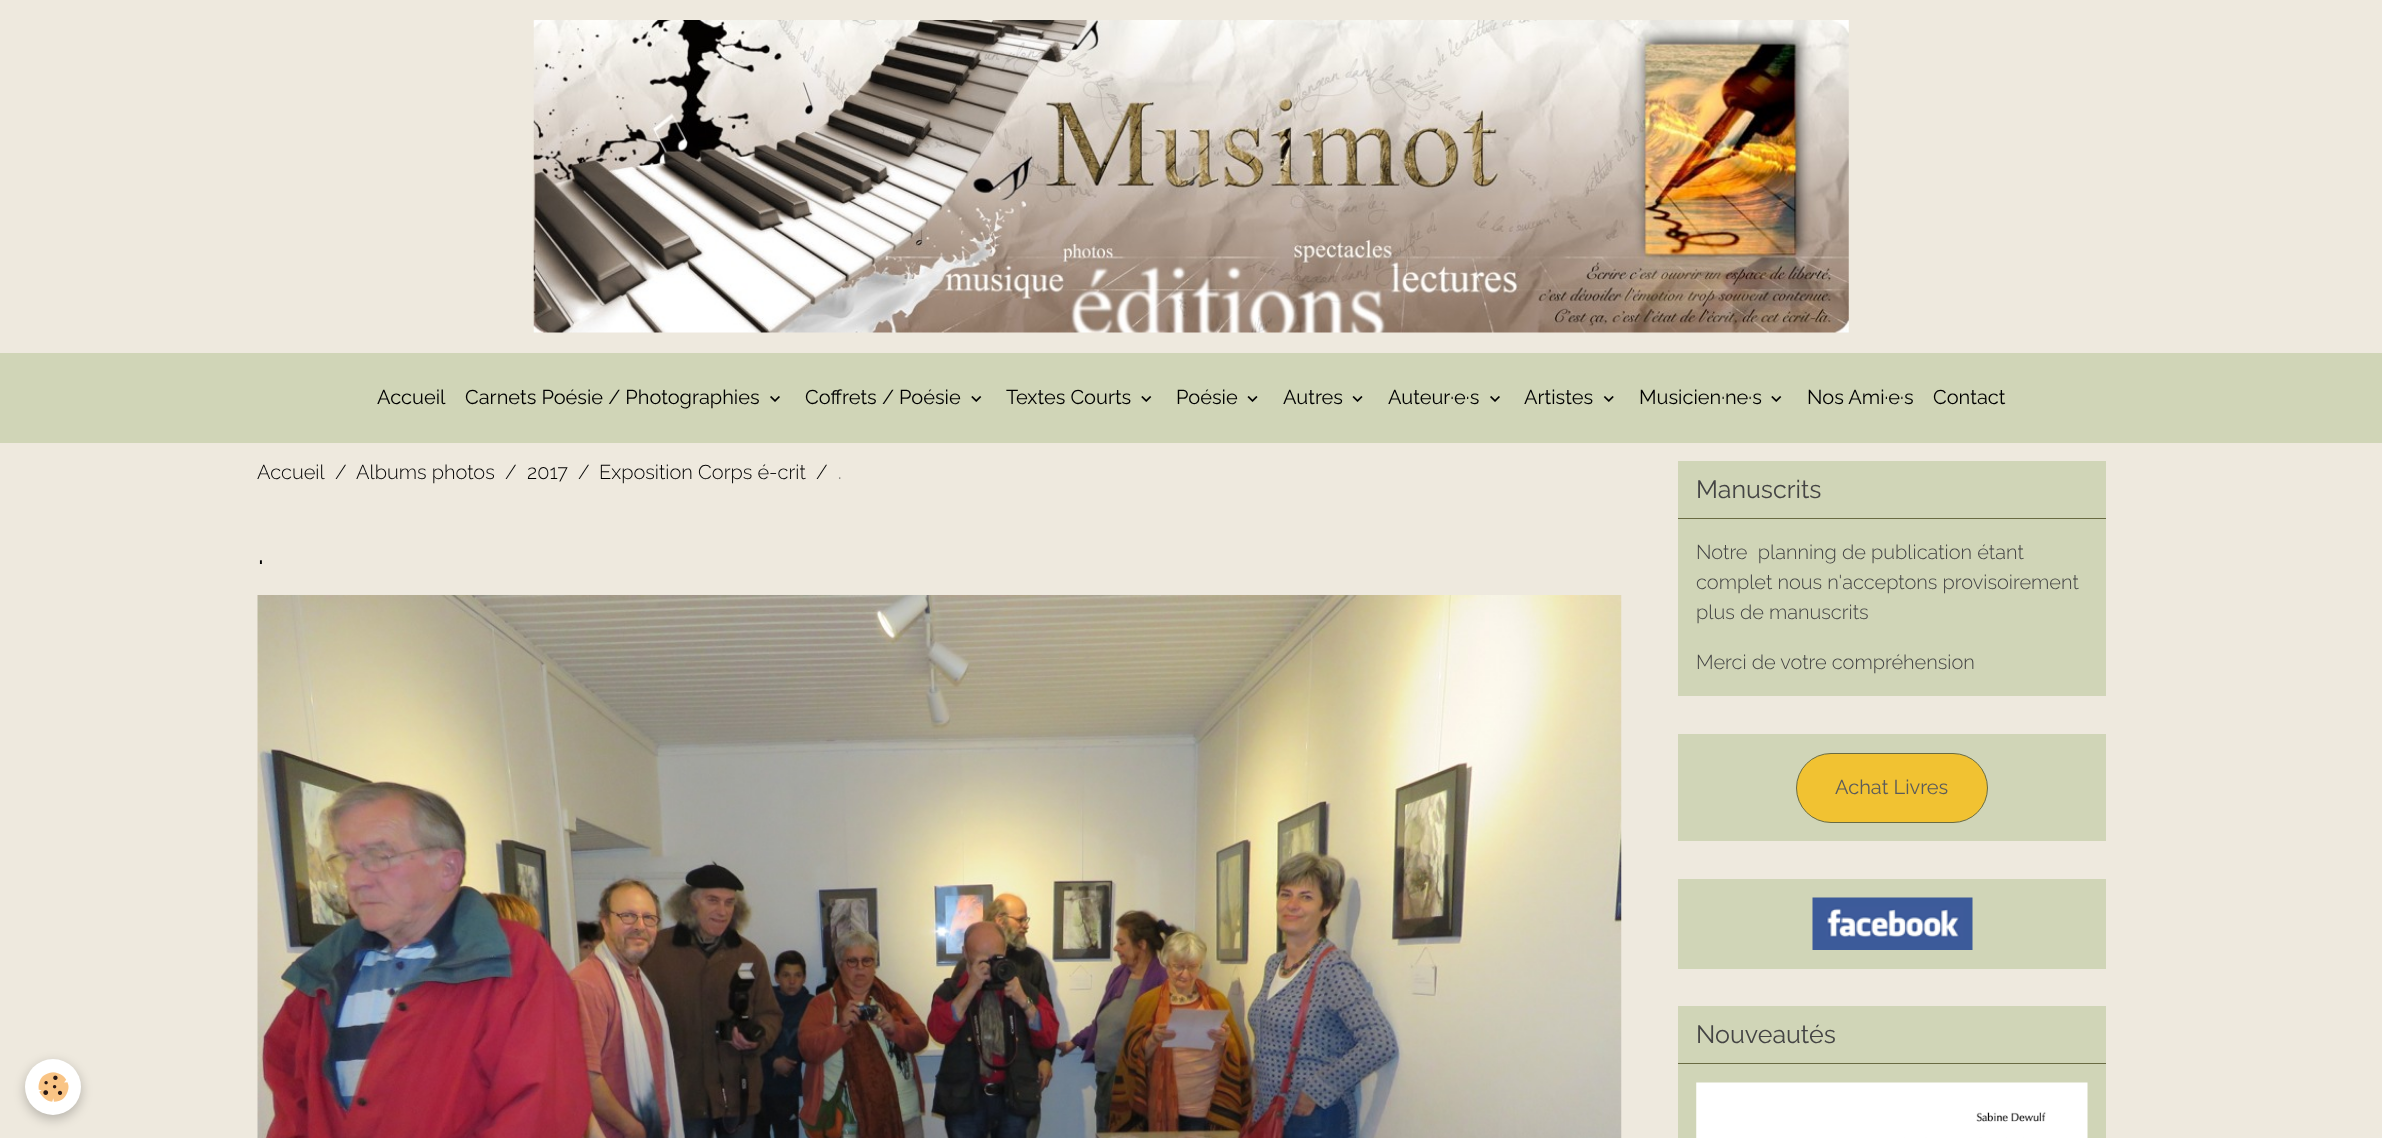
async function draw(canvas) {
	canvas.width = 2382;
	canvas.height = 1138;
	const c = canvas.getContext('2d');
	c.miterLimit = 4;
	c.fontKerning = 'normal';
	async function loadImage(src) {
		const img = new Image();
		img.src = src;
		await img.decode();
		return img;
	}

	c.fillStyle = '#eee9de';
	c.fillRect(0, 0, 2382, 1138);
	c.drawImage(await loadImage('img1.png'), 533, 20, 1316, 313);
	c.fillStyle = '#d0d5b7';
	c.fillRect(0, 353, 2382, 90);
	c.font = '20px Raleway';
	c.fillStyle = '#000';
	c.fillText('Accueil', 377, 404);
	c.fillText('Carnets Poésie / Photographies', 465, 404);
	c.drawImage(await loadImage('img2.png'), 770, 396, 10, 6);
	c.fillText('Coffrets / Poésie', 805, 404);
	c.drawImage(await loadImage('img3.png'), 971, 396, 11, 6);
	c.fillText('Textes Courts', 1006, 404);
	c.drawImage(await loadImage('img3.png'), 1141, 396, 11, 6);
	c.fillText('Poésie', 1176, 404);
	c.drawImage(await loadImage('img4.png'), 1247, 396, 11, 6);
	c.fillText('Autres', 1283, 404);
	c.drawImage(await loadImage('img4.png'), 1352, 396, 11, 6);
	c.fillText('Auteur·e·s', 1388, 404);
	c.drawImage(await loadImage('img2.png'), 1490, 396, 10, 6);
	c.fillText('Artistes', 1524, 404);
	c.drawImage(await loadImage('img5.png'), 1603, 396, 11, 6);
	c.fillText('Musicien·ne·s', 1639, 404);
	c.drawImage(await loadImage('img3.png'), 1771, 396, 11, 6);
	c.fillText('Nos Ami·e·s', 1807, 404);
	c.fillText('Contact', 1933, 404);
	c.font = '300 20px Raleway';
	for (const [text, x, y] of [
		['Accueil', 257, 479],
		['/', 335, 479],
		['Albums photos', 356, 479],
		['/', 505, 479],
		['2017', 527, 479],
		['/', 578, 479],
		['Exposition Corps é-crit', 599, 479],
		['/', 816, 479],
	]) {
		c.fillText(text, x, y);
	}
	c.fillStyle = '#5b5b5b';
	c.fillText('.', 838, 479);
	c.font = '300 44px Raleway';
	c.fillStyle = '#000';
	c.fillText('.', 257, 564);
	c.drawImage(await loadImage('img6.png'), 257, 595, 1365, 543);
	c.fillStyle = '#d0d5b7';
	c.fillRect(1678, 461, 428, 235);
	c.fillStyle = '#696b42';
	c.fillRect(1678, 518, 428, 1);
	c.font = '25px Raleway';
	c.fillStyle = '#444';
	c.fillText('Manuscrits', 1696, 498);
	c.font = '300 20px Raleway';
	for (const [text, x, y] of [
		['Notre  planning de publication étant', 1696, 559],
		['complet nous n\'acceptons provisoirement', 1696, 589],
		['plus de manuscrits', 1696, 619],
		['Merci de votre compréhension', 1696, 669],
	]) {
		c.fillText(text, x, y);
	}
	c.fillStyle = '#d0d5b7';
	c.fillRect(1678, 734, 428, 107);
	c.fillStyle = '#f1c232';
	c.beginPath();
	c.roundRect(1796.5, 753.5, 191, 69, 34.5);
	c.fill();
	c.strokeStyle = '#696b42';
	c.stroke();
	c.font = '20px Raleway';
	c.fillStyle = '#5b5b5b';
	c.fillText('Achat Livres', 1835, 794);
	c.fillStyle = '#d0d5b7';
	c.fillRect(1678, 879, 428, 90);
	c.drawImage(await loadImage('img7.png'), 1812, 897, 161, 53);
	c.fillRect(1678, 1006, 428, 132);
	c.fillStyle = '#696b42';
	c.fillRect(1678, 1063, 428, 1);
	c.font = '25px Raleway';
	c.fillStyle = '#444';
	c.fillText('Nouveautés', 1696, 1043);
	c.drawImage(await loadImage('img8.png'), 1696, 1082, 392, 56);
	c.fillStyle = '#0000003d';
	c.filter = 'blur(6px)';
	c.beginPath();
	c.roundRect(25, 1063, 56, 56, 28);
	c.fill();
	c.filter = 'none';
	c.fillStyle = '#fff';
	c.beginPath();
	c.arc(53, 1087, 28, 0, 2 * Math.PI);
	c.fill();
	c.drawImage(await loadImage('img9.png'), 38, 1072, 31, 30);
}

draw(document.querySelector('canvas'));
